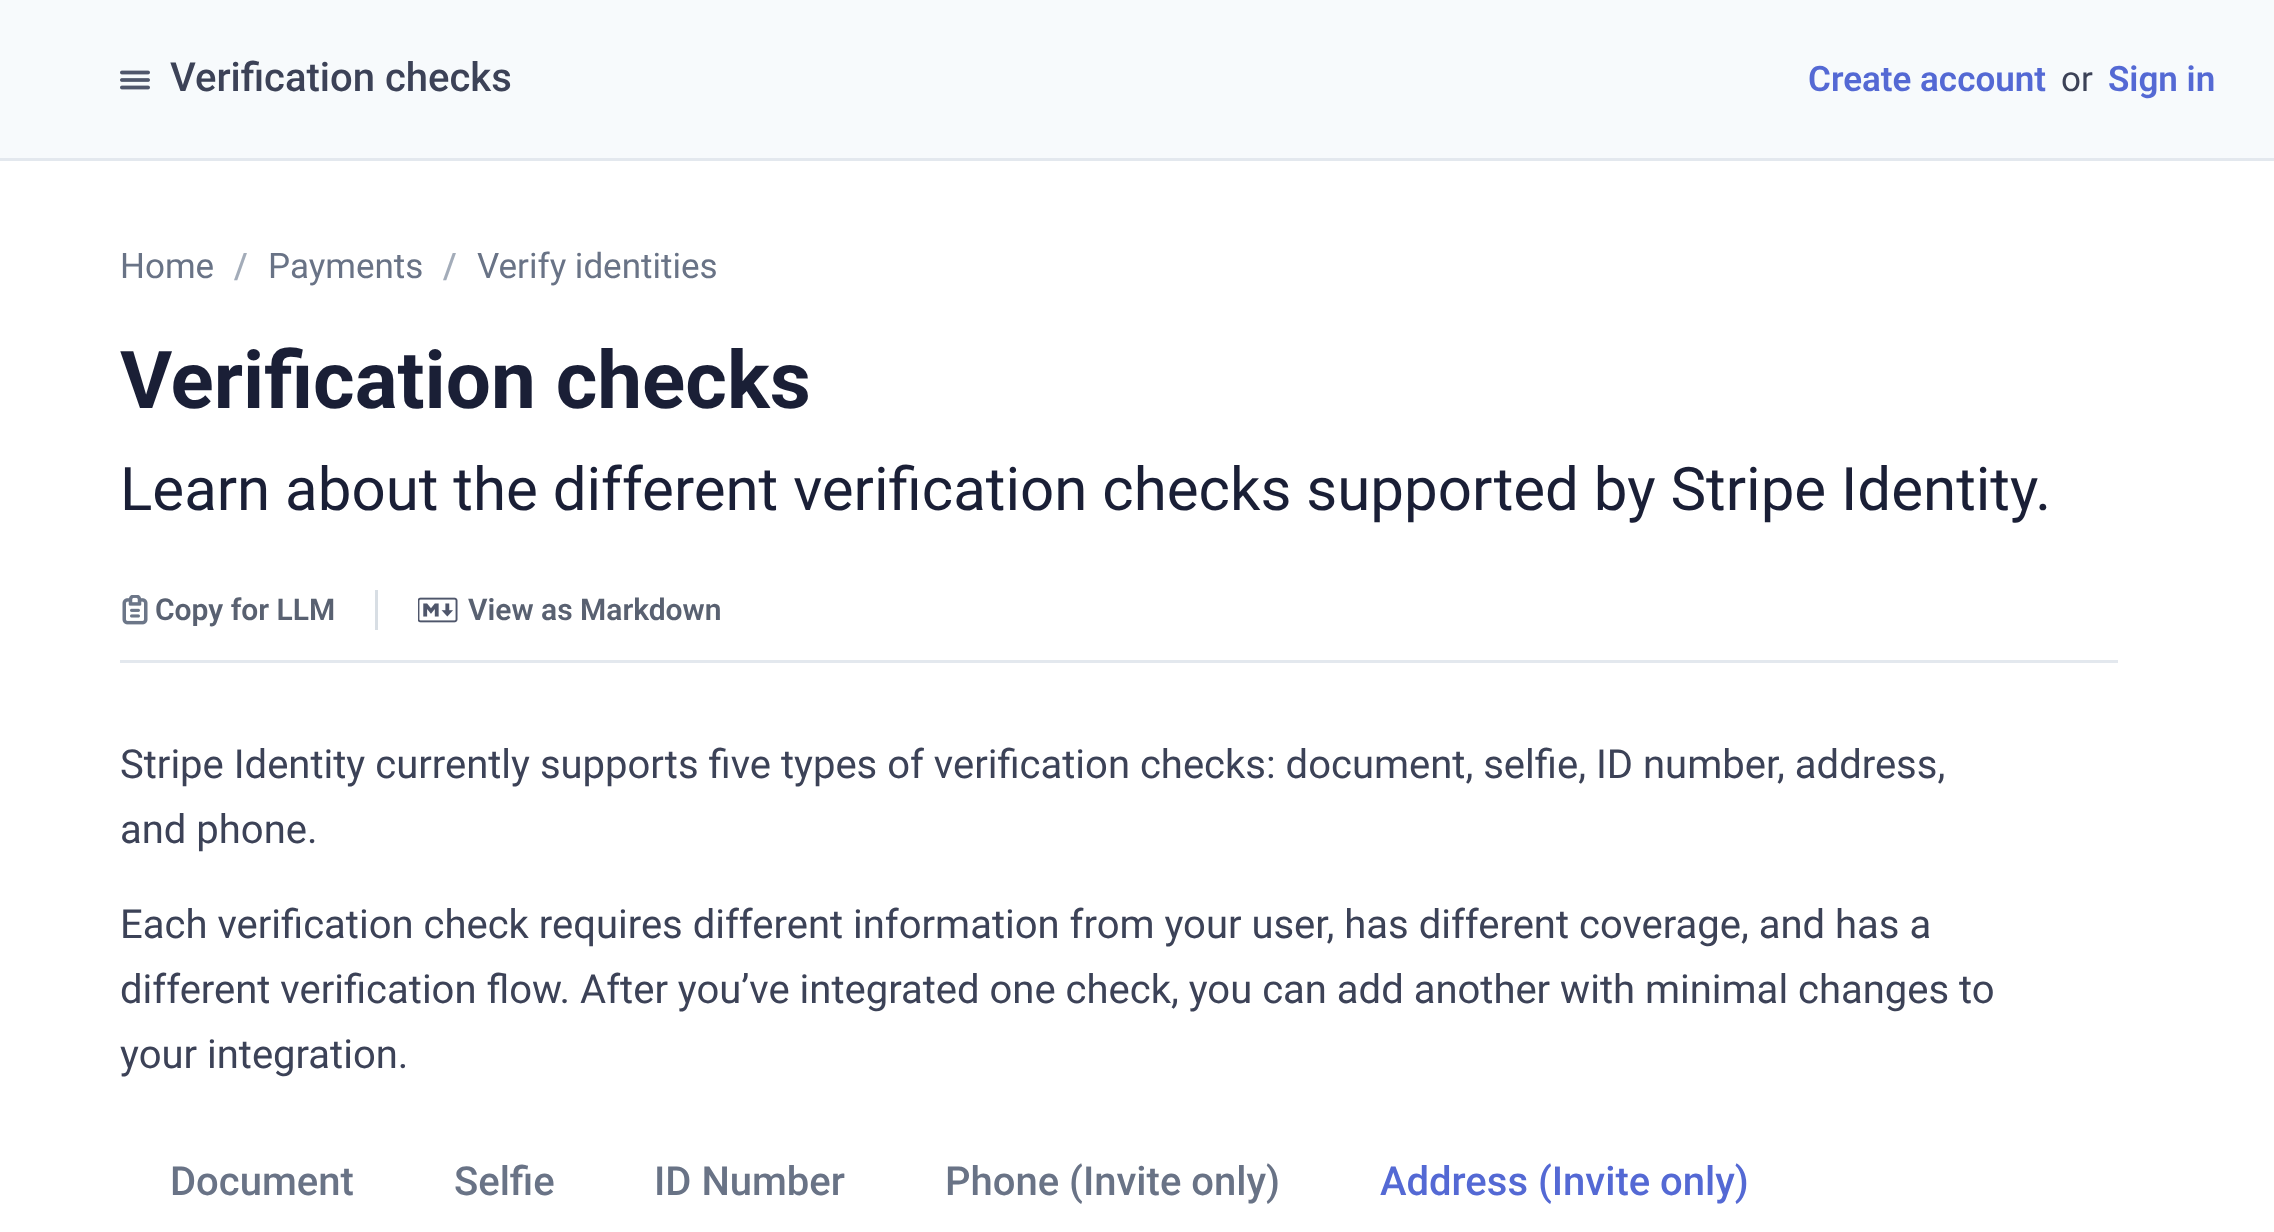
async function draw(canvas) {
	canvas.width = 2274;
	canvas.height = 1232;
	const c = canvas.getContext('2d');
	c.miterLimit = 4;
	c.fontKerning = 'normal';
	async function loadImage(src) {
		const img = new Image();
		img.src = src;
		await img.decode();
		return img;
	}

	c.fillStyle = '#fff';
	c.fillRect(0, 0, 2274, 1232);
	c.fillStyle = '#f7fafc';
	c.fillRect(0, 0, 2274, 158);
	c.fillStyle = '#e3e8ee';
	c.fillRect(0, 158, 2274, 3);
	c.drawImage(await loadImage('img1.png'), 120, 70, 30, 20);
	c.font = '500 40px Roboto';
	c.fillStyle = '#3c4257';
	c.fillText('Verification checks', 170, 91);
	c.font = '600 35px Roboto';
	c.fillStyle = '#5469d4';
	c.fillText('Create account', 1808, 91);
	c.font = '35px Roboto';
	c.fillStyle = '#3c4257';
	c.fillText('or', 2061, 91);
	c.font = '600 35px Roboto';
	c.fillStyle = '#5469d4';
	c.fillText('Sign in', 2108, 91);
	c.font = '35px Roboto';
	c.fillStyle = '#697386';
	c.fillText('Home', 120, 278);
	c.font = '500 35px Roboto';
	c.fillStyle = '#a3acb9';
	c.fillText('/', 234, 278);
	c.font = '35px Roboto';
	c.fillStyle = '#697386';
	c.fillText('Payments', 268, 278);
	c.font = '500 35px Roboto';
	c.fillStyle = '#a3acb9';
	c.fillText('/', 443, 278);
	c.font = '35px Roboto';
	c.fillStyle = '#697386';
	c.fillText('Verify identities', 477, 278);
	c.font = 'bold 80px Roboto';
	c.fillStyle = '#1a1f36';
	c.fillText('Verification checks', 120, 408);
	c.font = '60px Roboto';
	c.fillText('Learn about the different verification checks supported by Stripe Identity.', 120, 510);
	c.fillStyle = '#e3e8ee';
	c.fillRect(120, 660, 1998, 3);
	c.drawImage(await loadImage('img2.png'), 122, 595, 26, 30);
	c.font = '600 30px Roboto';
	c.fillStyle = '#596171';
	c.fillText('Copy for LLM', 155, 620);
	c.fillStyle = '#d8dee4';
	c.fillRect(375, 590, 3, 40);
	c.drawImage(await loadImage('img3.png'), 418, 597, 40, 26);
	c.fillStyle = '#596171';
	c.fillText('View as Markdown', 468, 620);
	c.font = '40px Roboto';
	c.fillStyle = '#3c4257';
	for (const [text, x, y] of [
		['Stripe Identity currently supports five types of verification checks: document, selfie, ID number, address,', 120, 778],
		['and phone.', 120, 843],
		['Each verification check requires different information from your user, has different coverage, and has a', 120, 938],
		['different verification flow. After you’ve integrated one check, you can add another with minimal changes to', 120, 1003],
		['your integration.', 120, 1068],
	]) {
		c.fillText(text, x, y);
	}
	c.font = '500 40px Roboto';
	c.fillStyle = '#697386';
	for (const [text, x, y] of [
		['Document', 170, 1195],
		['Selfie', 454, 1195],
		['ID Number', 654, 1195],
		['Phone (Invite only)', 945, 1195],
	]) {
		c.fillText(text, x, y);
	}
	c.fillStyle = '#5469d4';
	c.fillText('Address (Invite only)', 1380, 1195);
}

draw(document.querySelector('canvas'));
